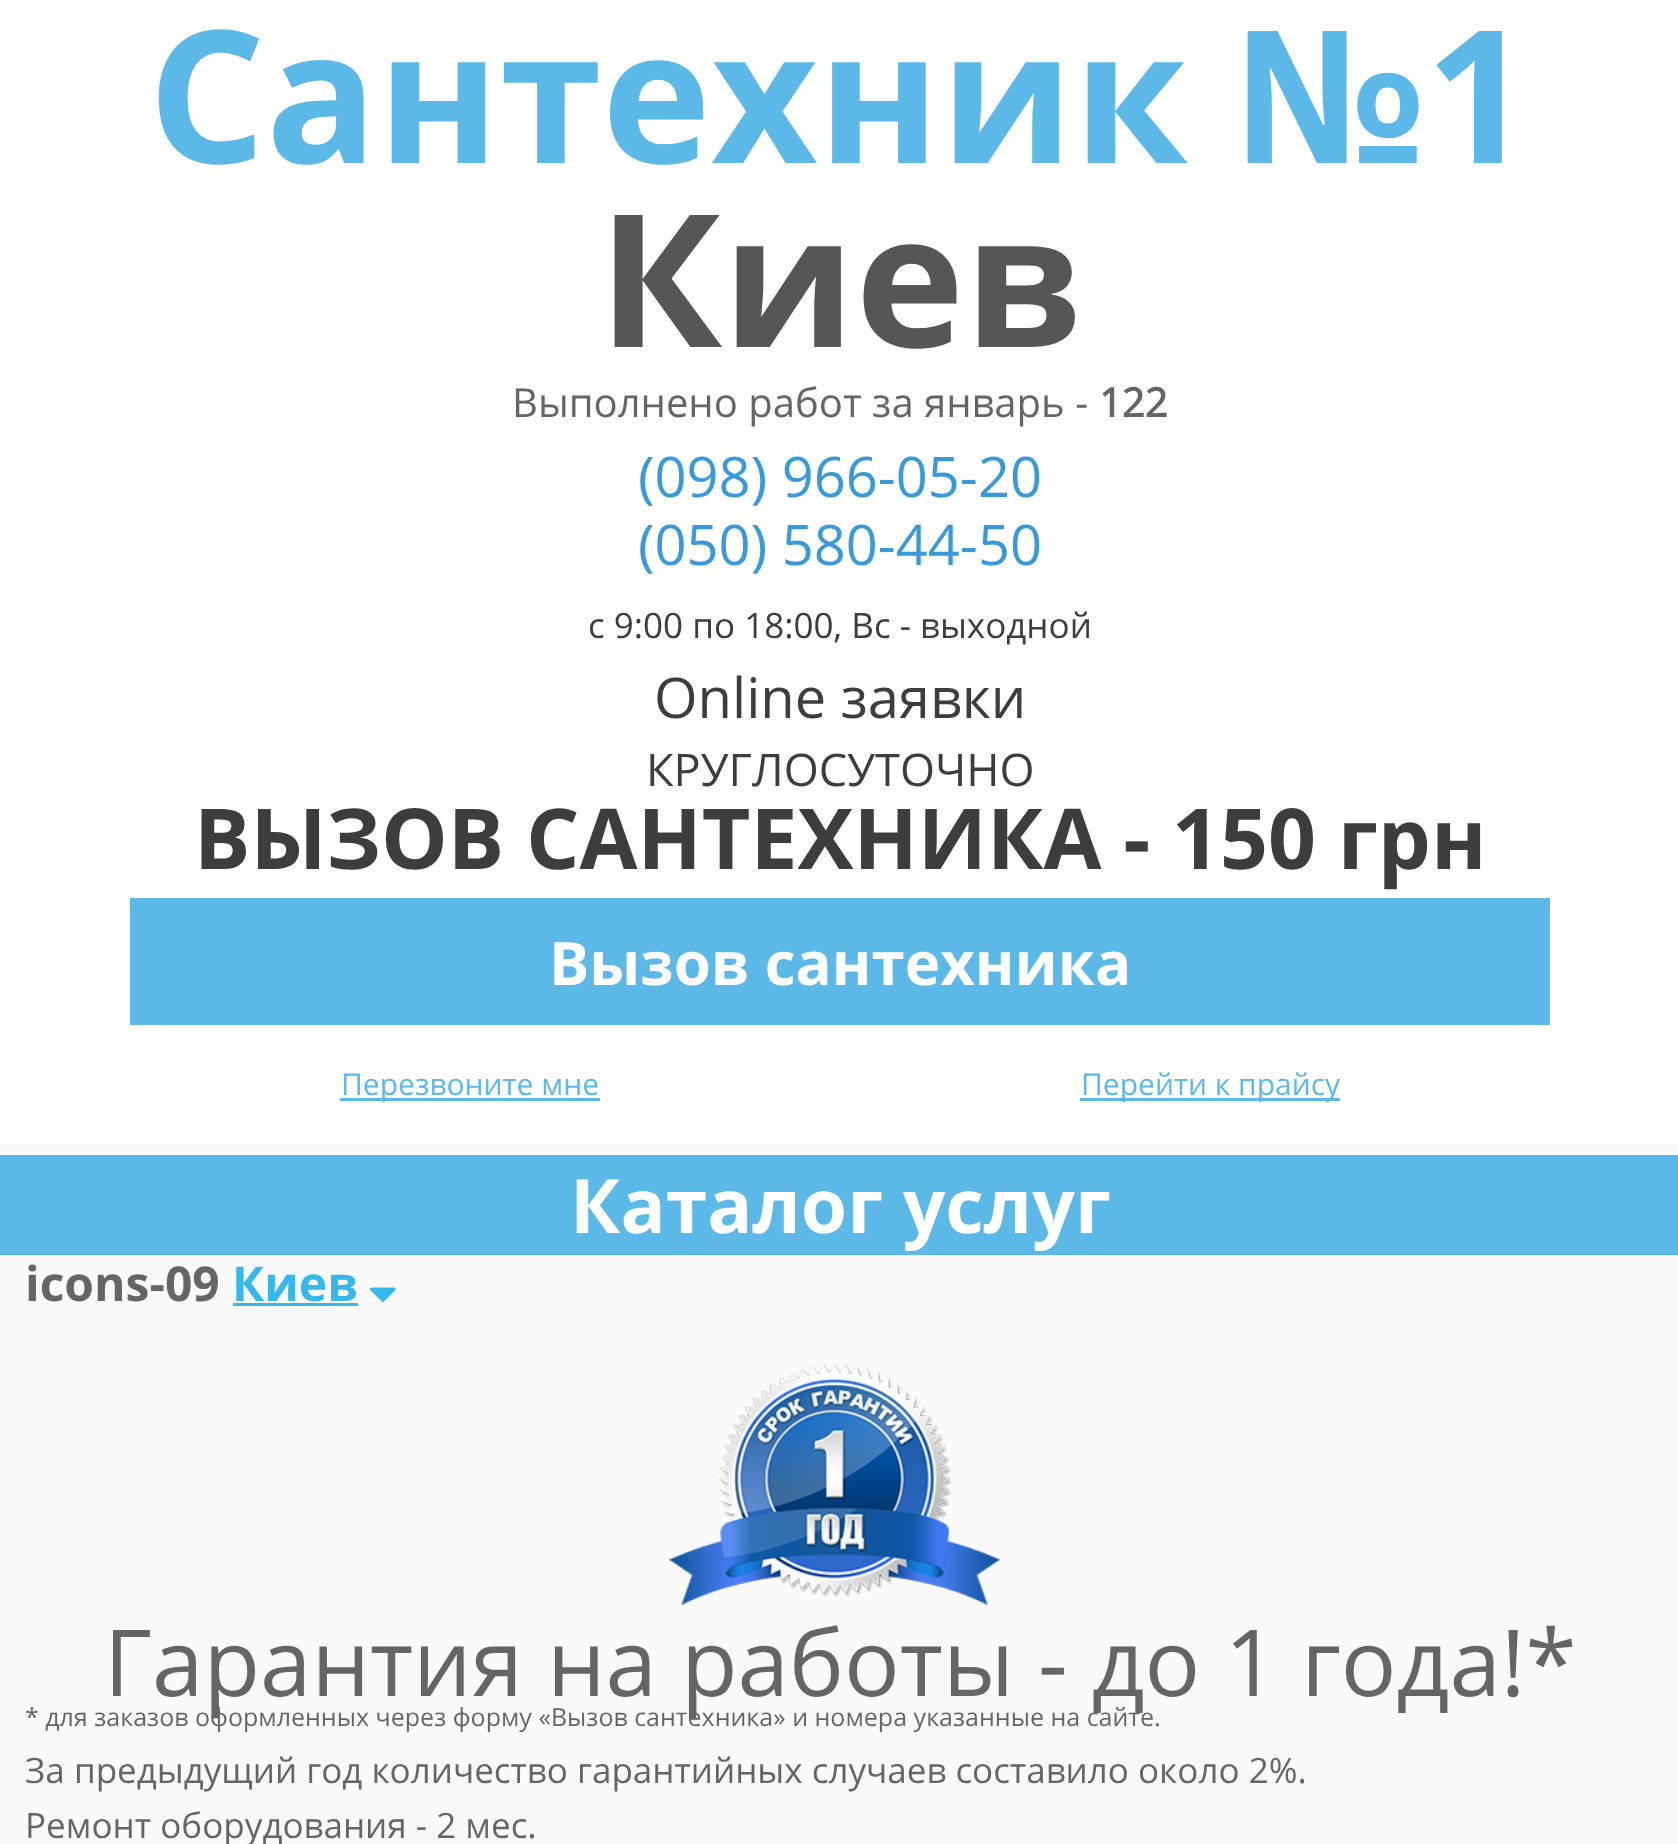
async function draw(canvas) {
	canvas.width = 1678;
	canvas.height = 1844;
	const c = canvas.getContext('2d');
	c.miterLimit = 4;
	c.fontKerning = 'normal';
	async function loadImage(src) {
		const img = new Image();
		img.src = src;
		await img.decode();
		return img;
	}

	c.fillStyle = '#fafafa';
	c.fillRect(0, 0, 1678, 1844);
	c.fillStyle = '#fff';
	c.fillRect(0, 0, 1678, 1143);
	c.font = 'bold 184.75px Open Sans';
	c.fillStyle = '#5cb8e7';
	c.fillText('Сантехник №1', 148, 163);
	c.fillStyle = '#565656';
	c.fillText('Киев', 598, 347);
	c.font = '40px Open Sans';
	c.fillStyle = '#656565';
	c.fillText('Выполнено работ за январь -', 512, 417);
	c.font = 'bold 40px "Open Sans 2"';
	c.fillText('122', 1099, 417);
	c.font = '56px Open Sans';
	c.fillStyle = '#3a9ad9';
	c.fillText('(098) 966-05-20', 638, 497);
	c.fillText('(050) 580-44-50', 638, 565);
	c.font = '35px Open Sans';
	c.fillStyle = '#3d3d3d';
	c.fillText('с 9:00 по 18:00, Вс - выходной', 588, 638);
	c.font = '56px Open Sans';
	c.fillText('Online заявки', 654, 718);
	c.font = '45px Open Sans';
	c.fillText('КРУГЛОСУТОЧНО', 646, 786);
	c.font = 'bold 84px Open Sans';
	c.fillText('ВЫЗОВ САНТЕХНИКА - 150 грн', 194, 869);
	c.fillStyle = '#5cb8e7';
	c.fillRect(130, 898, 1420, 127);
	c.font = 'bold 60px Open Sans';
	c.fillStyle = '#fff';
	c.fillText('Вызов сантехника', 549, 985);
	c.fillStyle = '#5cb8e7';
	c.fillRect(340, 1098, 260, 3);
	c.font = '30px Open Sans';
	c.fillText('Перезвоните мне', 341, 1095);
	c.fillRect(1080, 1098, 260, 3);
	c.fillText('Перейти к прайсу', 1081, 1095);
	c.fillRect(0, 1155, 1678, 100);
	c.font = 'bold 75px Open Sans';
	c.fillStyle = '#fff';
	c.fillText('Каталог услуг', 570, 1233);
	c.font = 'bold 48px Open Sans';
	c.fillStyle = '#656565';
	c.fillText('icons-09', 25, 1301);
	c.fillStyle = '#37b8ea';
	c.fillText('Киев', 232, 1301);
	c.fillRect(233, 1303, 125, 3);
	c.drawImage(await loadImage('img1.png'), 370, 1287, 26, 15);
	c.drawImage(await loadImage('img2.png'), 668, 1363, 333, 243);
	c.font = '92.4px Open Sans';
	c.fillStyle = '#656565';
	c.fillText('Гарантия на работы - до 1 года!*', 104, 1696);
	c.font = '25px Open Sans';
	c.fillText('* для заказов оформленных через форму «Вызов сантехника» и номера указанные на сайте.', 25, 1726);
	c.font = '35px Open Sans';
	c.fillText('За предыдущий год количество гарантийных случаев составило около 2%.', 25, 1783);
	c.fillText('Ремонт оборудования - 2 мес.', 25, 1838);
}

draw(document.querySelector('canvas'));
